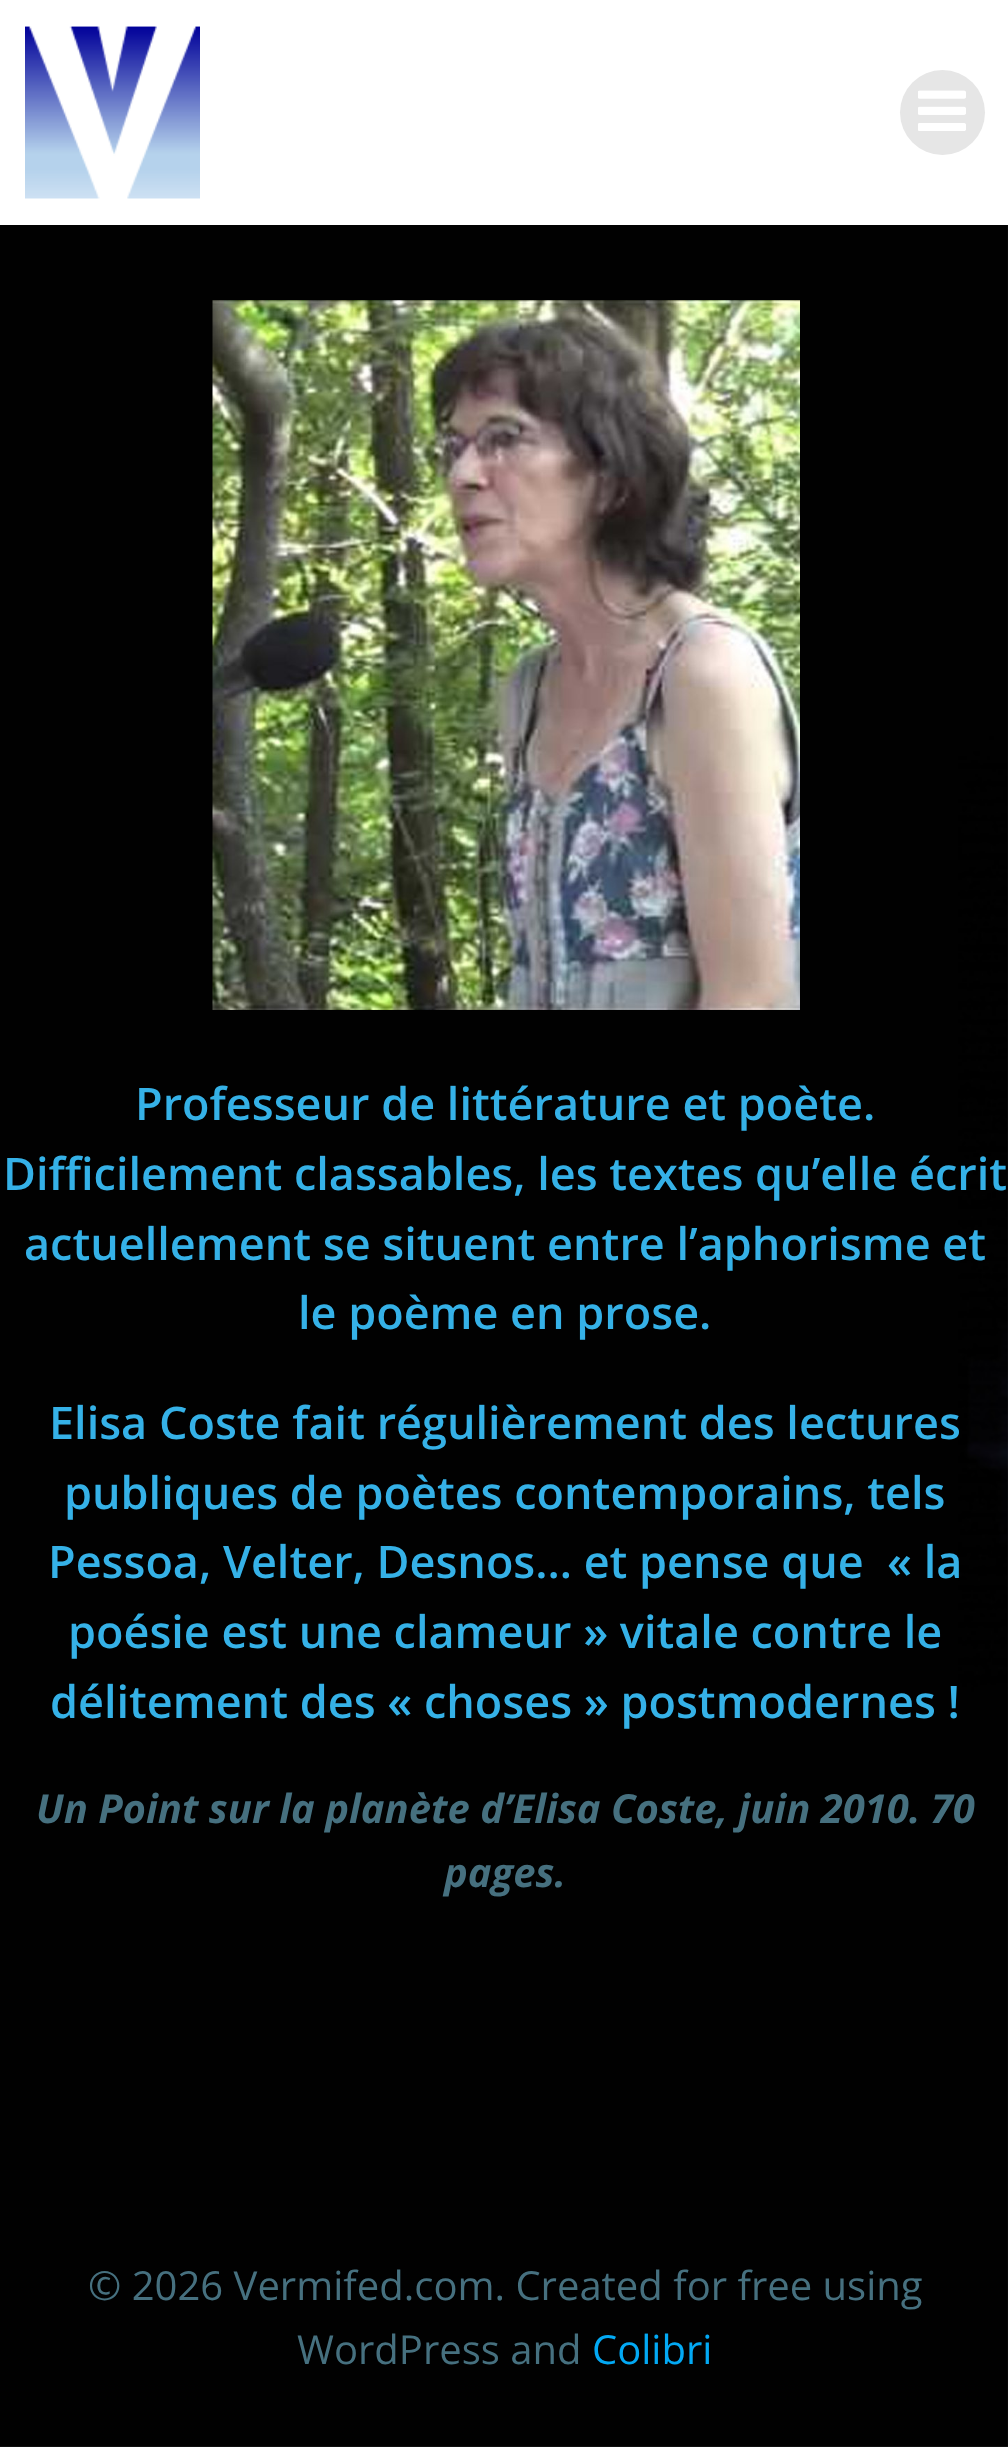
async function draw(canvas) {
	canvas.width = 1008;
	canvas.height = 2447;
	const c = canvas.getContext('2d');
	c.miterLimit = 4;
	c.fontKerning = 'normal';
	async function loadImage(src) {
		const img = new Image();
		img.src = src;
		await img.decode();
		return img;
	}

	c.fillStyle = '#fff';
	c.fillRect(0, 0, 1008, 2447);
	c.drawImage(await loadImage('img1.png'), 0, 225, 1008, 2222);
	c.drawImage(await loadImage('img2.png'), 25, 26, 175, 173);
	c.fillStyle = '#e6e6e6';
	c.beginPath();
	c.arc(942.5, 112.5, 42.5, 0, 2 * Math.PI);
	c.fill();
	c.drawImage(await loadImage('img3.png'), 918, 90, 48, 41);
	c.drawImage(await loadImage('img4.png'), 212, 300, 588, 710);
	c.font = '600 45px Open Sans';
	c.fillStyle = '#35b1e7';
	for (const [text, x, y] of [
		['Professeur de littérature et poète.', 135, 1120],
		['Difficilement classables, les textes qu’elle écrit', 3, 1190],
		['actuellement se situent entre l’aphorisme et', 24, 1260],
		['le poème en prose.', 298, 1329],
		['Elisa Coste fait régulièrement des lectures', 49, 1439],
		['publiques de poètes contemporains, tels', 64, 1509],
		['Pessoa, Velter, Desnos… et pense que  « la', 48, 1578],
		['poésie est une clameur » vitale contre le', 68, 1648],
		['délitement des « choses » postmodernes !', 50, 1718],
	]) {
		c.fillText(text, x, y);
	}
	c.font = 'italic bold 40px Open Sans';
	c.fillStyle = '#46707f';
	c.fillText('Un Point sur la planète d’Elisa Coste, juin 2010. 70', 36, 1823);
	c.fillText('pages.', 444, 1887);
	c.font = '40px Open Sans';
	c.fillText('© 2026 Vermifed.com. Created for free using', 88, 2300);
	c.fillText('WordPress and', 297, 2364);
	c.fillStyle = '#03a9f4';
	c.fillText('Colibri', 592, 2364);
}

draw(document.querySelector('canvas'));
